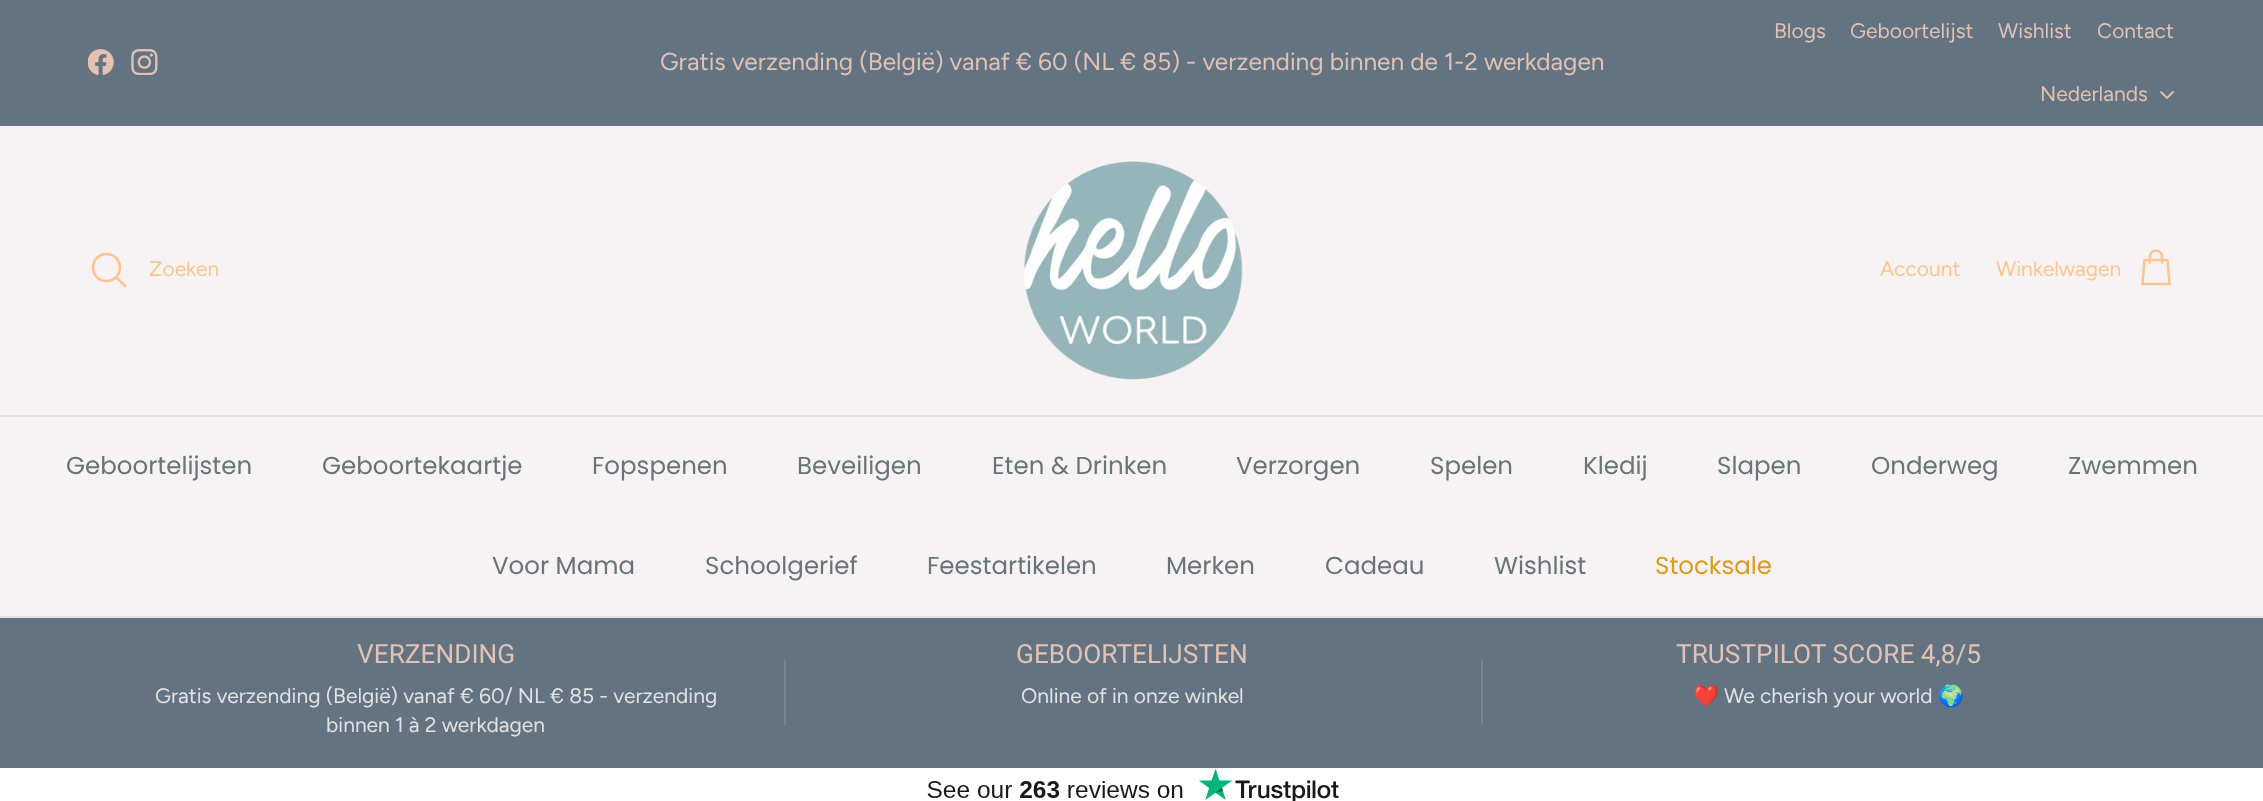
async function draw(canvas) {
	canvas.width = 2263;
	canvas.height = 801;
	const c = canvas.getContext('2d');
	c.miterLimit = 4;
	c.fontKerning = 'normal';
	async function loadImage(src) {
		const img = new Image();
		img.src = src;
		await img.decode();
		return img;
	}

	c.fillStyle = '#fff';
	c.fillRect(0, 0, 2263, 801);
	c.fillStyle = '#637381';
	c.fillRect(0, 0, 2263, 126);
	c.drawImage(await loadImage('img1.png'), 88, 49, 26, 26);
	c.drawImage(await loadImage('img2.png'), 131, 49, 27, 26);
	c.font = '24.5px Figtree';
	c.fillStyle = '#e2c2b3';
	c.fillText('Gratis verzending (België) vanaf € 60 (NL € 85) - verzending binnen de 1-2 werkdagen', 660, 70);
	c.font = '21px Figtree';
	for (const [text, x, y] of [
		['Blogs', 1774, 38],
		['Geboortelijst', 1850, 38],
		['Wishlist', 1998, 38],
		['Contact', 2097, 38],
		['Nederlands', 2040, 101],
	]) {
		c.fillText(text, x, y);
	}
	c.beginPath();
	c.moveTo(2173.5, 91.5);
	c.lineTo(2167, 98);
	c.lineTo(2160.5, 91.5);
	c.strokeStyle = '#e2c2b3';
	c.lineWidth = 1.8;
	c.stroke();
	c.fillStyle = '#f7f3f5';
	c.fillRect(0, 126, 2263, 289);
	c.fillStyle = '#dfe3e8';
	c.fillRect(0, 415, 2263, 2);
	c.beginPath();
	c.arc(106.5, 267.5, 13.5, 0, 2 * Math.PI);
	c.strokeStyle = '#ffc48c';
	c.lineWidth = 2.6;
	c.stroke();
	c.fillStyle = '#ffc48c';
	c.fillText('Zoeken', 149, 276);
	c.beginPath();
	c.moveTo(117, 278);
	c.lineTo(125, 286);
	c.lineCap = 'square';
	c.stroke();
	c.drawImage(await loadImage('img3.png'), 1023, 161, 220, 219);
	c.fillText('Account', 1880, 276);
	c.fillText('Winkelwagen', 1996, 276);
	c.beginPath();
	c.moveTo(2162, 263.5);
	c.lineTo(2162, 256);
	c.bezierCurveTo(2162, 253, 2159, 250.5, 2156, 250.5);
	c.bezierCurveTo(2153, 250.5, 2150, 253, 2150, 256);
	c.lineTo(2150, 263.5);
	c.moveTo(2144.5, 260);
	c.lineTo(2167.5, 260);
	c.lineTo(2169.5, 284);
	c.lineTo(2142.5, 284);
	c.closePath();
	c.lineCap = 'butt';
	c.stroke();
	c.fillStyle = '#dfe3e8';
	c.fillRect(0, 616, 2263, 2);
	c.fillStyle = '#f7f3f5';
	c.fillRect(0, 417, 2263, 199);
	c.font = '24.5px Poppins';
	c.fillStyle = '#687477';
	for (const [text, x, y] of [
		['Geboortelijsten', 66, 474],
		['Geboortekaartje', 322, 474],
		['Fopspenen', 592, 474],
		['Beveiligen', 797, 474],
		['Eten & Drinken', 992, 474],
		['Verzorgen', 1236, 474],
		['Spelen', 1430, 474],
		['Kledij', 1583, 474],
		['Slapen', 1717, 474],
		['Onderweg', 1871, 474],
		['Zwemmen', 2068, 474],
		['Voor Mama', 492, 574],
		['Schoolgerief', 705, 574],
		['Feestartikelen', 927, 574],
		['Merken', 1166, 574],
		['Cadeau', 1325, 574],
		['Wishlist', 1494, 574],
	]) {
		c.fillText(text, x, y);
	}
	c.fillStyle = '#dd9a1a';
	c.fillText('Stocksale', 1655, 574);
	c.fillStyle = '#637381';
	c.fillRect(0, 618, 2263, 150);
	c.font = '26.25px Roboto';
	c.fillStyle = '#e2c2b3';
	c.fillText('VERZENDING', 357, 663);
	c.font = '21px Figtree';
	c.fillStyle = '#e2e2e2';
	c.fillText('Gratis verzending (België) vanaf € 60/ NL € 85 - verzending', 155, 703);
	c.fillText('binnen 1 à 2 werkdagen', 326, 732);
	c.fillStyle = '#768490';
	c.fillRect(784, 660, 2, 65);
	c.font = '26.25px Roboto';
	c.fillStyle = '#e2c2b3';
	c.fillText('GEBOORTELIJSTEN', 1016, 663);
	c.font = '21px Figtree';
	c.fillStyle = '#e2e2e2';
	c.fillText('Online of in onze winkel', 1021, 703);
	c.fillStyle = '#768490';
	c.fillRect(1481, 660, 2, 65);
	c.font = '26.25px Roboto';
	c.fillStyle = '#e2c2b3';
	c.fillText('TRUSTPILOT SCORE 4,8/5', 1676, 663);
	c.font = '21px Noto Color Emoji';
	c.fillStyle = '#e2e2e2';
	c.fillText('❤️', 1693, 703);
	c.font = '21px Figtree';
	c.fillText('We cherish your world', 1724, 703);
	c.font = '21px Noto Color Emoji';
	c.fillText('🌍', 1938, 703);
	c.drawImage(await loadImage('img4.png'), 927, 768, 412, 33);
}

draw(document.querySelector('canvas'));
